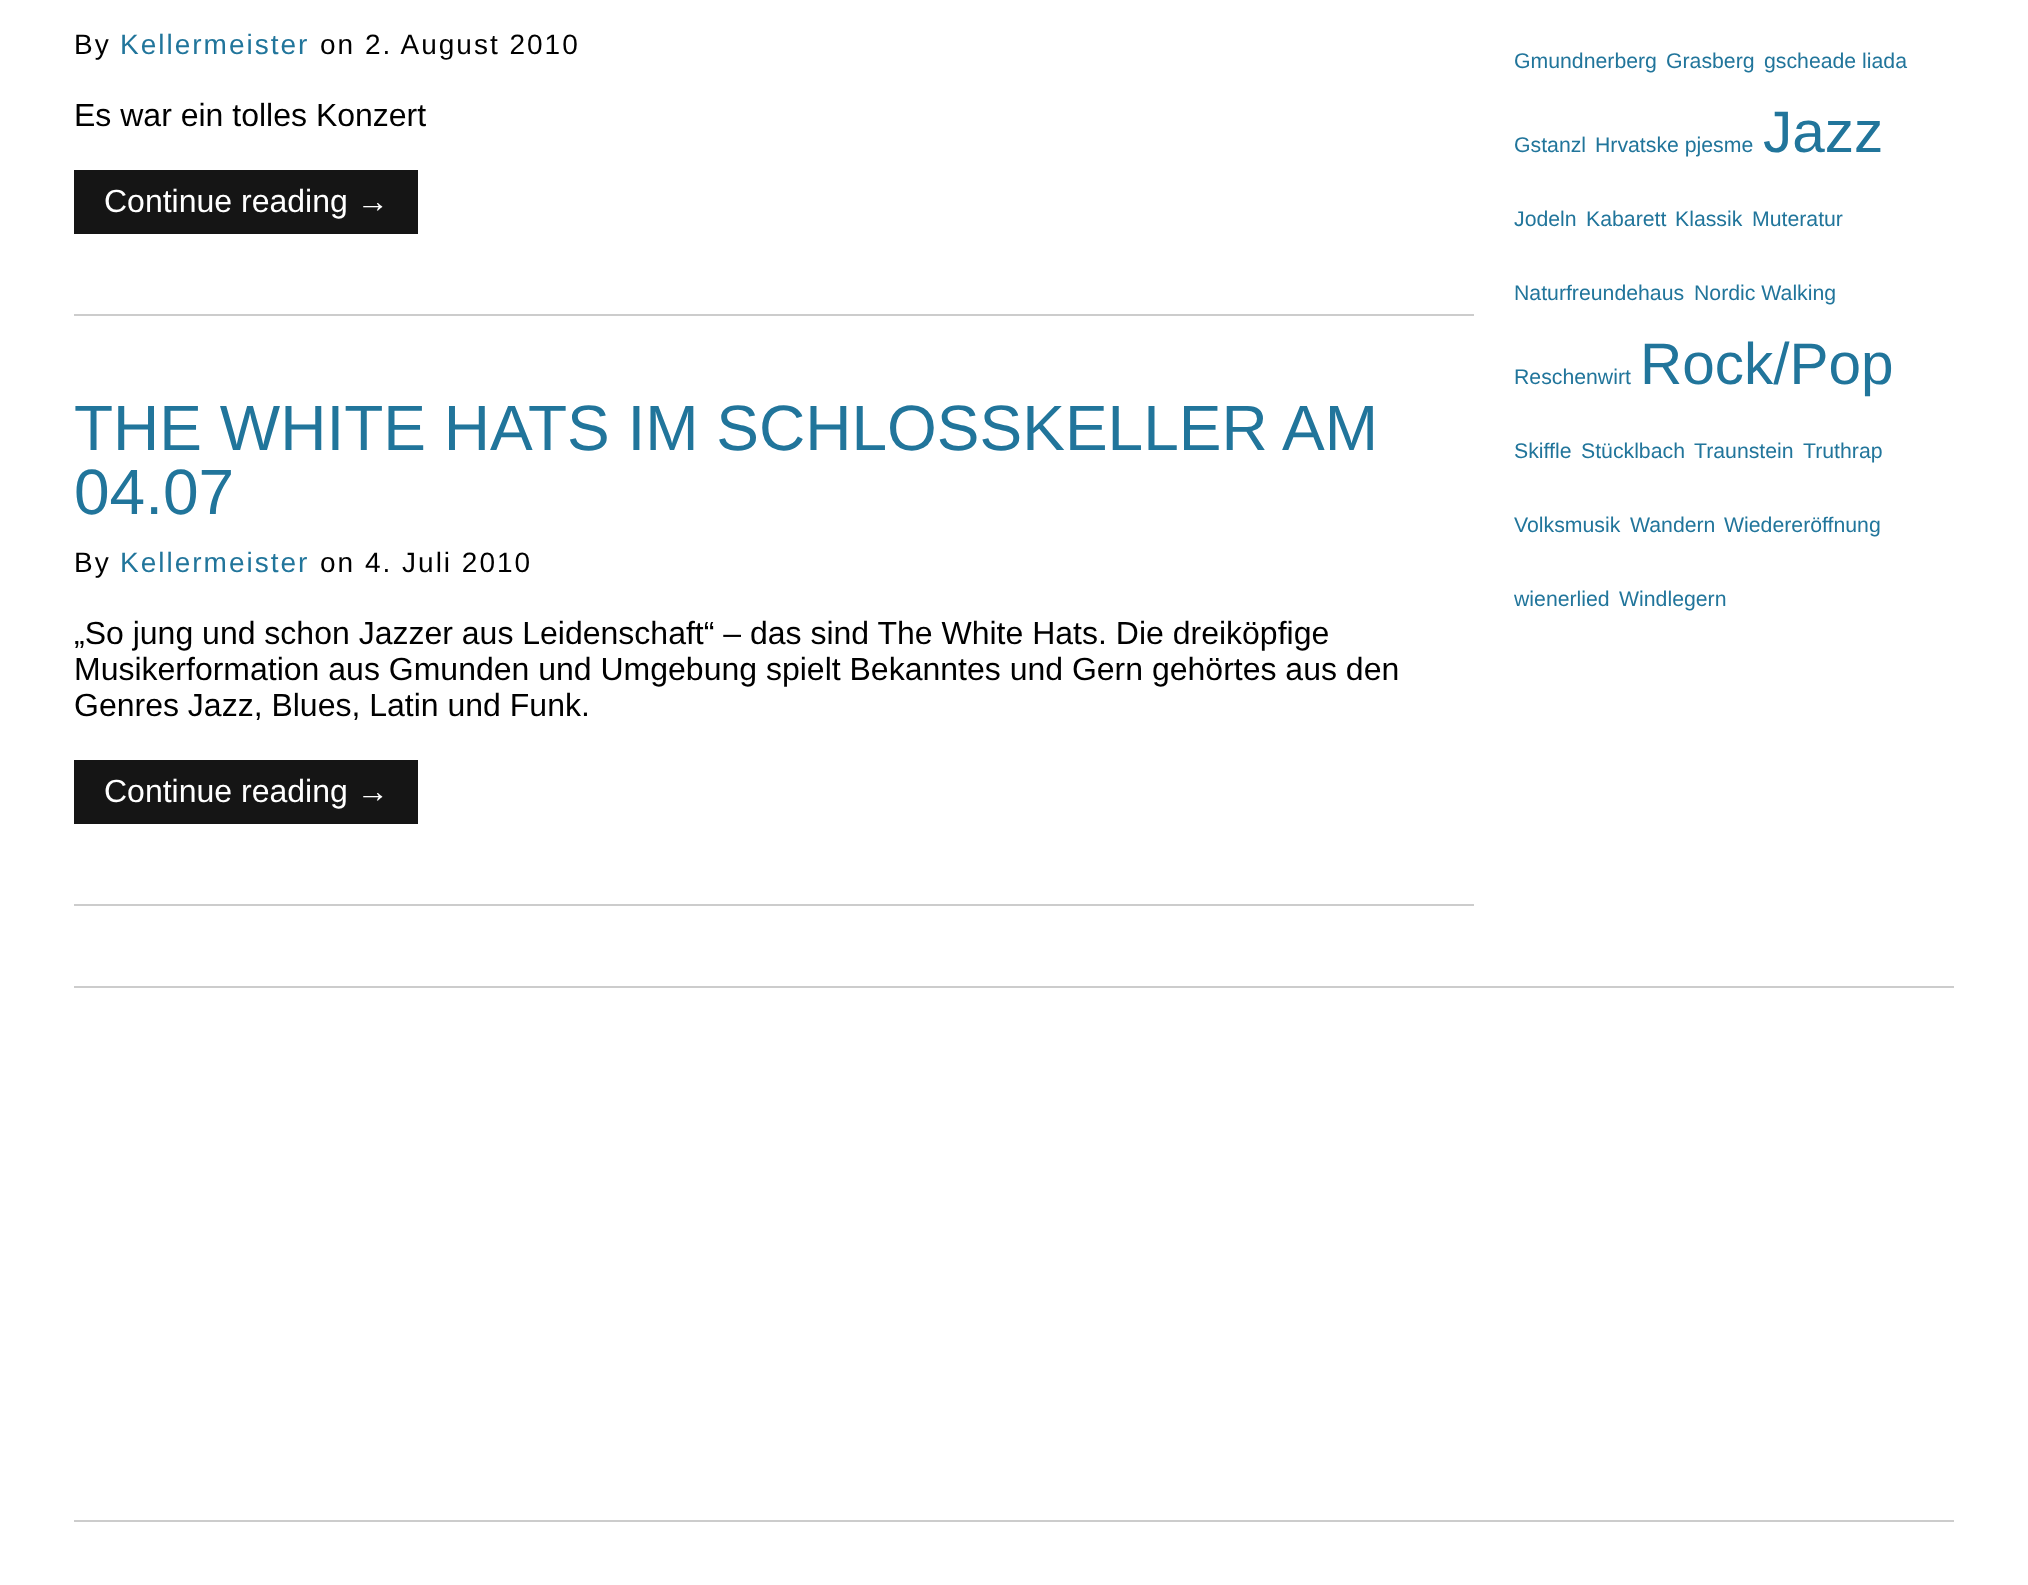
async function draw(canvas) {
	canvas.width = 2028;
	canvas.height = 1585;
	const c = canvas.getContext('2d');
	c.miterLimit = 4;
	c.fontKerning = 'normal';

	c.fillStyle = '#fff';
	c.fillRect(0, 0, 2028, 1585);
	c.fillStyle = '#ccc';
	c.fillRect(74, 986, 1880, 2);
	c.fillRect(74, 314, 1400, 2);
	c.letterSpacing = '2px';
	c.font = '28px Liberation Sans';
	c.fillStyle = '#000';
	c.fillText('By', 74, 54);
	c.fillStyle = '#21759b';
	c.fillText('Kellermeister', 120, 54);
	c.fillStyle = '#000';
	c.fillText('on 2. August 2010', 320, 54);
	c.letterSpacing = '0px';
	c.font = '32px Liberation Sans';
	c.fillText('Es war ein tolles Konzert', 74, 126);
	c.fillStyle = '#151515';
	c.fillRect(74, 170, 344, 64);
	c.fillStyle = '#fff';
	c.fillText('Continue reading →', 104, 212);
	c.fillStyle = '#ccc';
	c.fillRect(74, 904, 1400, 2);
	c.font = '64px Liberation Sans';
	c.fillStyle = '#21759b';
	c.fillText('THE WHITE HATS IM SCHLOSSKELLER AM', 74, 450);
	c.fillText('04.07', 74, 514);
	c.letterSpacing = '2px';
	c.font = '28px Liberation Sans';
	c.fillStyle = '#000';
	c.fillText('By', 74, 572);
	c.fillStyle = '#21759b';
	c.fillText('Kellermeister', 120, 572);
	c.fillStyle = '#000';
	c.fillText('on 4. Juli 2010', 320, 572);
	c.letterSpacing = '0px';
	c.font = '32px Liberation Sans';
	for (const [text, x, y] of [
		['„So jung und schon Jazzer aus Leidenschaft“ – das sind The White Hats. Die dreiköpfige', 74, 644],
		['Musikerformation aus Gmunden und Umgebung spielt Bekanntes und Gern gehörtes aus den', 74, 680],
		['Genres Jazz, Blues, Latin und Funk.', 74, 716],
	]) {
		c.fillText(text, x, y);
	}
	c.fillStyle = '#151515';
	c.fillRect(74, 760, 344, 64);
	c.fillStyle = '#fff';
	c.fillText('Continue reading →', 104, 802);
	c.font = '21.25px Liberation Sans';
	c.fillStyle = '#21759b';
	for (const [text, x, y] of [
		['Gmundnerberg', 1514, 68],
		['Grasberg', 1666, 68],
		['gscheade liada', 1764, 68],
		['Gstanzl', 1514, 152],
		['Hrvatske pjesme', 1595, 152],
	]) {
		c.fillText(text, x, y);
	}
	c.font = '58.5px Liberation Sans';
	c.fillText('Jazz', 1763, 152);
	c.font = '21.25px Liberation Sans';
	for (const [text, x, y] of [
		['Jodeln', 1514, 226],
		['Kabarett', 1586, 226],
		['Klassik', 1675, 226],
		['Muteratur', 1752, 226],
		['Naturfreundehaus', 1514, 300],
		['Nordic Walking', 1694, 300],
		['Reschenwirt', 1514, 384],
	]) {
		c.fillText(text, x, y);
	}
	c.font = '58.5px Liberation Sans';
	c.fillText('Rock/Pop', 1640, 384);
	c.font = '21.25px Liberation Sans';
	for (const [text, x, y] of [
		['Skiffle', 1514, 458],
		['Stücklbach', 1581, 458],
		['Traunstein', 1694, 458],
		['Truthrap', 1803, 458],
		['Volksmusik', 1514, 532],
		['Wandern', 1630, 532],
		['Wiedereröffnung', 1724, 532],
		['wienerlied', 1514, 606],
		['Windlegern', 1619, 606],
	]) {
		c.fillText(text, x, y);
	}
	c.fillStyle = '#ccc';
	c.fillRect(74, 1520, 1880, 2);
}

draw(document.querySelector('canvas'));
